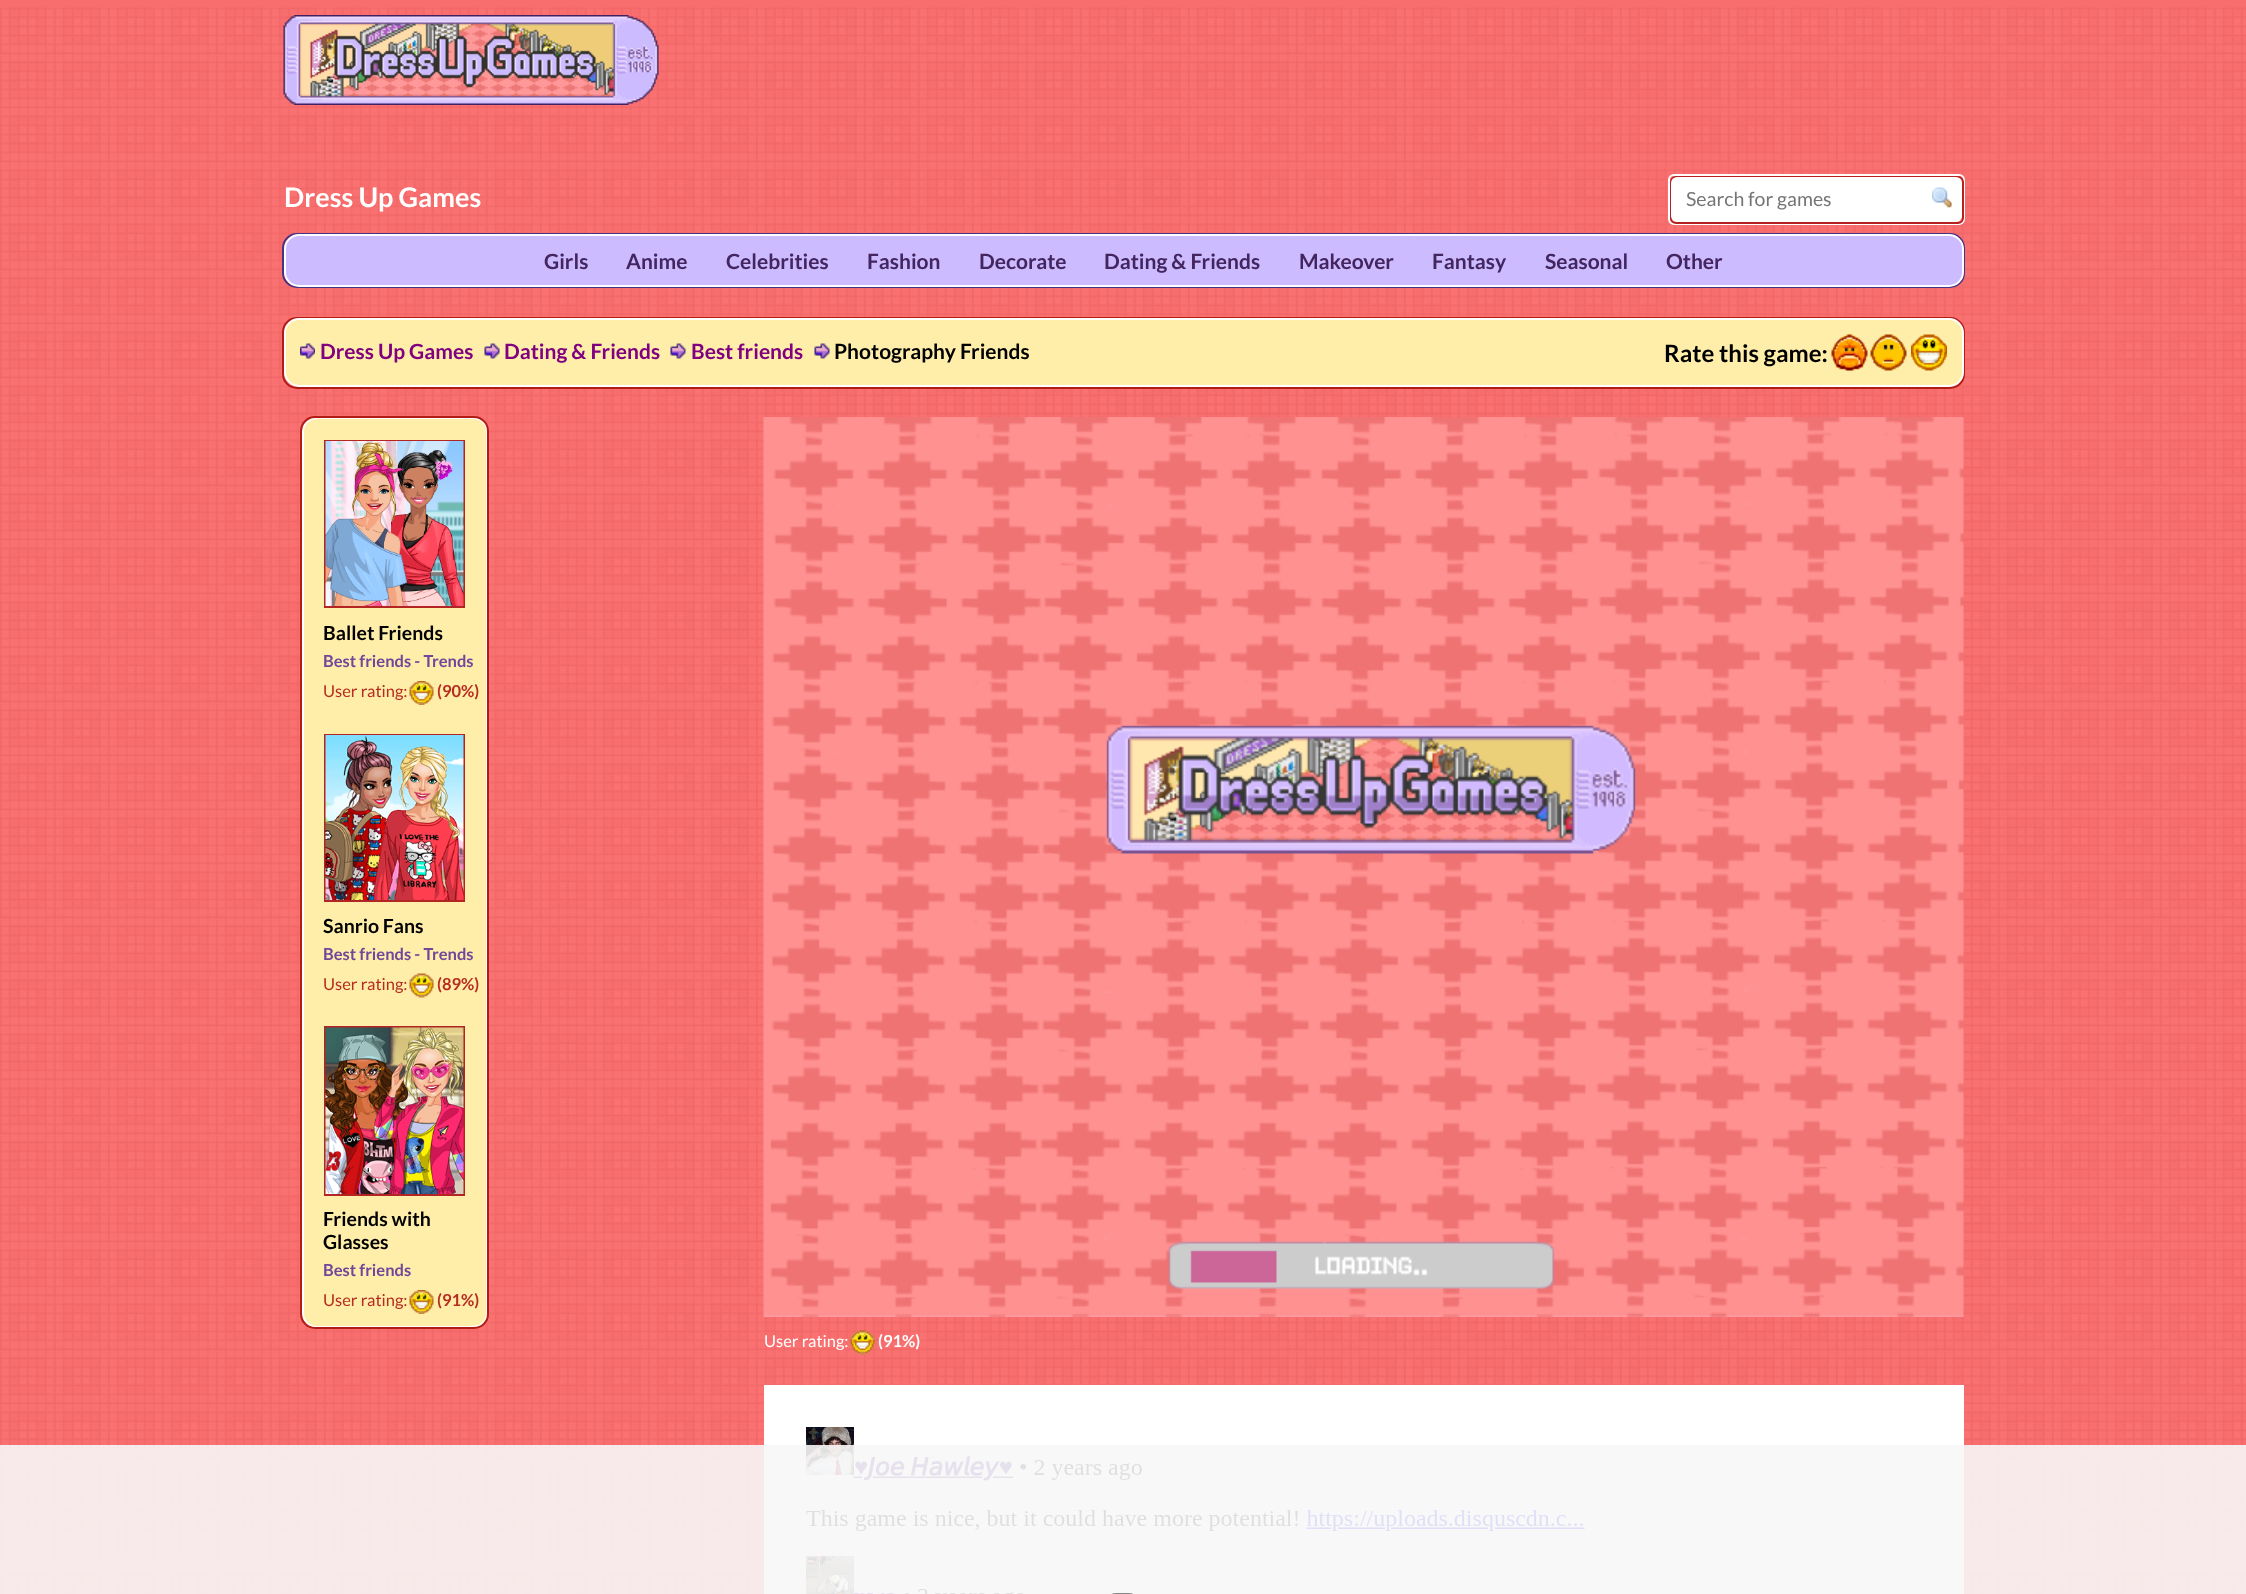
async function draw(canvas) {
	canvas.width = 2246;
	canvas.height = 1594;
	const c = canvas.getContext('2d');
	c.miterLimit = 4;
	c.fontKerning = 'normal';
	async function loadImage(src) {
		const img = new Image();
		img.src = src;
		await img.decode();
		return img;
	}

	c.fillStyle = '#f86d6d';
	c.fillRect(0, 0, 2246, 1594);
	c.drawImage(await loadImage('img1.png'), 0, 7, 2246, 1587);
	c.drawImage(await loadImage('img2.png'), 283, 15, 376, 90);
	c.font = 'bold 27px Lato';
	c.fillStyle = '#fff';
	c.fillText('Dress Up Games', 284, 207);
	c.beginPath();
	c.roundRect(1669, 175, 295, 49, 5);
	c.strokeStyle = '#fff';
	c.lineWidth = 2;
	c.stroke();
	c.beginPath();
	c.roundRect(1671, 177, 292, 46, 5);
	c.strokeStyle = '#b62121';
	c.stroke();
	c.beginPath();
	c.roundRect(1671, 177, 291, 45, 6);
	c.fill();
	c.font = '19.5px Lato';
	c.fillStyle = '#757575';
	c.fillText('Search for games', 1686, 206);
	c.drawImage(await loadImage('img3.png'), 1932, 187, 20, 22);
	c.beginPath();
	c.roundRect(283, 234, 1681, 53, 14);
	c.strokeStyle = '#473286';
	c.stroke();
	c.fillStyle = '#cbf';
	c.beginPath();
	c.roundRect(285, 235, 1678, 51, 14);
	c.fill();
	c.strokeStyle = '#fff';
	c.stroke();
	c.font = 'bold 21px Lato';
	c.fillStyle = '#43255f';
	for (const [text, x, y] of [
		['Girls', 544, 269],
		['Anime', 626, 269],
		['Celebrities', 726, 269],
		['Fashion', 867, 269],
		['Decorate', 979, 269],
		['Dating & Friends', 1104, 269],
		['Makeover', 1299, 269],
		['Fantasy', 1432, 269],
		['Seasonal', 1545, 269],
		['Other', 1666, 269],
	]) {
		c.fillText(text, x, y);
	}
	c.beginPath();
	c.roundRect(283, 318, 1681, 70, 14);
	c.strokeStyle = '#b11c14';
	c.stroke();
	c.fillStyle = '#fea';
	c.beginPath();
	c.roundRect(285, 319, 1678, 67, 14);
	c.fill();
	c.strokeStyle = '#fff';
	c.stroke();
	c.drawImage(await loadImage('img4.png'), 300, 343, 15, 16);
	c.fillStyle = '#800080';
	c.fillText('Dress Up Games', 320, 359);
	c.drawImage(await loadImage('img5.png'), 484, 343, 16, 16);
	c.fillText('Dating & Friends', 504, 359);
	c.drawImage(await loadImage('img6.png'), 670, 343, 16, 16);
	c.fillText('Best friends', 691, 359);
	c.drawImage(await loadImage('img5.png'), 814, 343, 16, 16);
	c.fillStyle = '#000';
	c.fillText('Photography Friends', 834, 359);
	c.font = 'bold 24px Lato';
	c.fillText('Rate this game:', 1664, 362);
	c.drawImage(await loadImage('img7.png'), 1831, 334, 37, 37);
	c.drawImage(await loadImage('img8.png'), 1870, 334, 37, 37);
	c.drawImage(await loadImage('img9.png'), 1911, 334, 36, 37);
	c.fillStyle = '#fea';
	c.beginPath();
	c.roundRect(303, 418, 184, 909, 14);
	c.fill();
	c.stroke();
	c.beginPath();
	c.roundRect(301, 417, 187, 911, 14);
	c.strokeStyle = '#b11c14';
	c.stroke();
	c.strokeStyle = '#b32522';
	c.strokeRect(325, 441, 139, 166);
	c.drawImage(await loadImage('img10.png'), 325, 441, 139, 165);
	c.font = 'bold 19.5px Lato';
	c.fillStyle = '#000';
	c.fillText('Ballet Friends', 323, 640);
	c.font = 'bold 16.5px Lato';
	c.fillStyle = '#71479b';
	c.fillText('Best friends - Trends', 323, 667);
	c.font = '16.5px Lato';
	c.fillStyle = '#b72c20';
	c.fillText('User rating:', 323, 697);
	c.drawImage(await loadImage('img11.png'), 409, 681, 25, 24);
	c.font = 'bold 16.5px Lato';
	c.fillText('(90%)', 437, 697);
	c.strokeRect(325, 735, 139, 166);
	c.drawImage(await loadImage('img12.png'), 325, 735, 139, 165);
	c.font = 'bold 19.5px Lato';
	c.fillStyle = '#000';
	c.fillText('Sanrio Fans', 323, 933);
	c.font = 'bold 16.5px Lato';
	c.fillStyle = '#71479b';
	c.fillText('Best friends - Trends', 323, 960);
	c.font = '16.5px Lato';
	c.fillStyle = '#b72c20';
	c.fillText('User rating:', 323, 990);
	c.drawImage(await loadImage('img13.png'), 409, 973, 25, 25);
	c.font = 'bold 16.5px Lato';
	c.fillText('(89%)', 437, 990);
	c.strokeRect(325, 1027, 139, 168);
	c.drawImage(await loadImage('img14.png'), 325, 1027, 139, 167);
	c.font = 'bold 19.5px Lato';
	c.fillStyle = '#000';
	c.fillText('Friends with', 323, 1226);
	c.fillText('Glasses', 323, 1249);
	c.font = 'bold 16.5px Lato';
	c.fillStyle = '#71479b';
	c.fillText('Best friends', 323, 1276);
	c.font = '16.5px Lato';
	c.fillStyle = '#b72c20';
	c.fillText('User rating:', 323, 1306);
	c.drawImage(await loadImage('img11.png'), 409, 1290, 25, 24);
	c.font = 'bold 16.5px Lato';
	c.fillText('(91%)', 437, 1306);
	c.drawImage(await loadImage('img15.png'), 763, 417, 1201, 900);
	c.font = '16.5px Lato';
	c.fillStyle = '#fff';
	c.fillText('User rating:', 764, 1347);
	c.drawImage(await loadImage('img16.png'), 850, 1330, 25, 25);
	c.font = 'bold 16.5px Lato';
	c.fillText('(91%)', 878, 1347);
	c.fillRect(764, 1385, 1200, 209);
	c.drawImage(await loadImage('img17.png'), 806, 1427, 779, 167);
	c.fillStyle = '#f7f7f7e6';
	c.fillRect(0, 1445, 2246, 149);
	c.beginPath();
	c.roundRect(1107, 1594, 31, 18, 15.5);
	c.strokeStyle = '#888';
	c.stroke();
}

draw(document.querySelector('canvas'));
